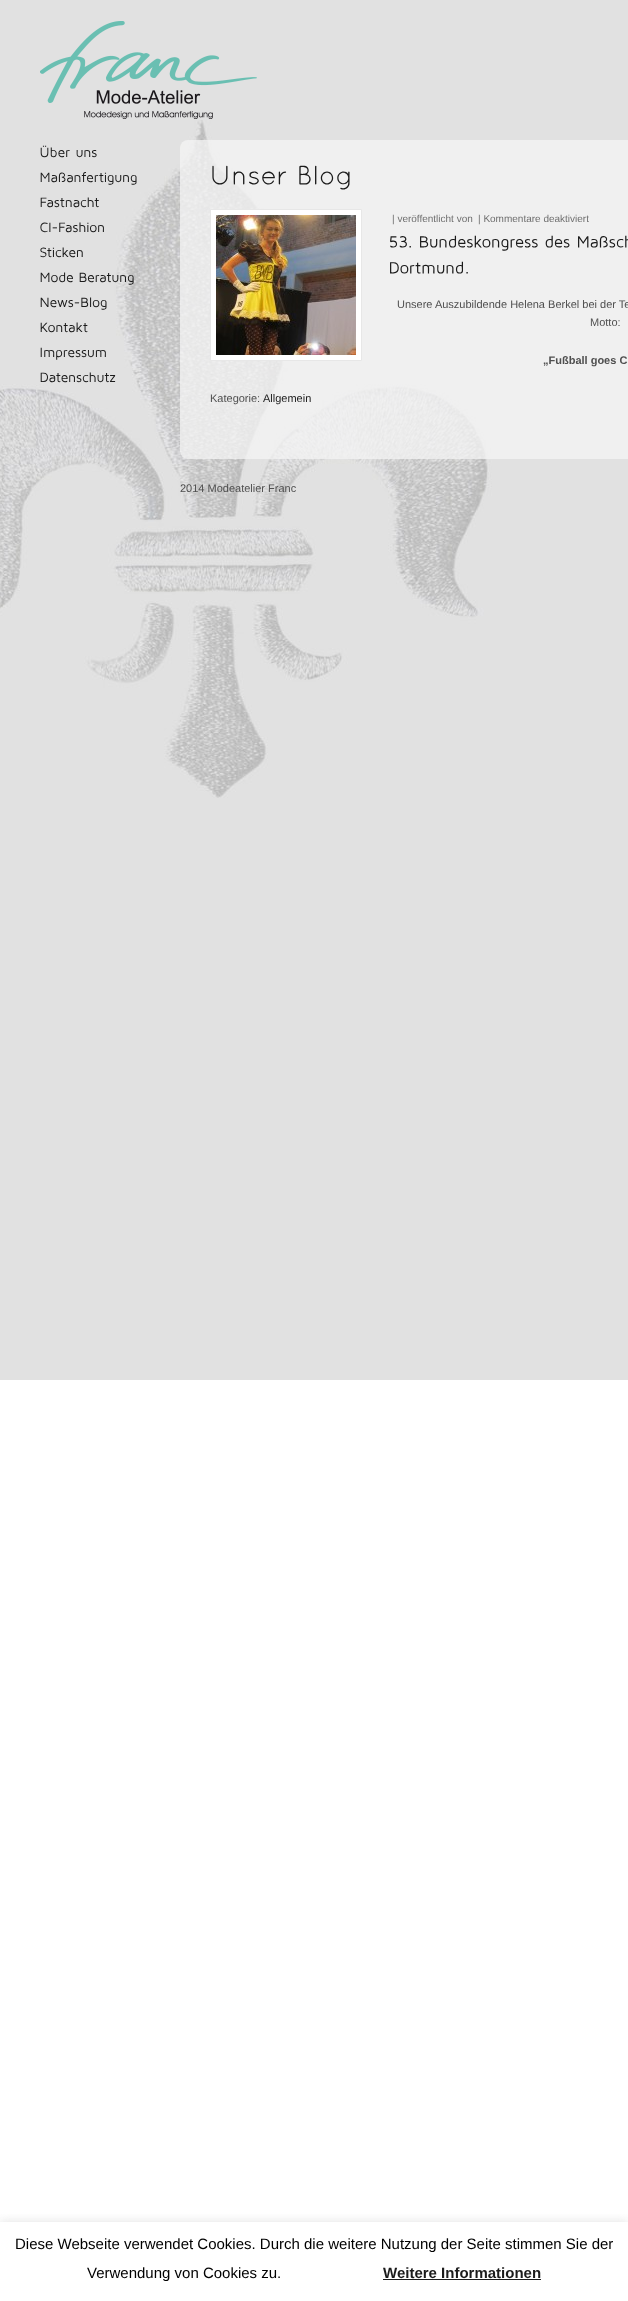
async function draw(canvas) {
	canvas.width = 628;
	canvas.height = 2301;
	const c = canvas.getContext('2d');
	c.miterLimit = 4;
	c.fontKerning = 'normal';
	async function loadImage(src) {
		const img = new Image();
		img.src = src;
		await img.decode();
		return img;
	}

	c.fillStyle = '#fff';
	c.fillRect(0, 0, 628, 2301);
	c.fillStyle = '#e1e1e1';
	c.fillRect(0, 0, 628, 1380);
	c.drawImage(await loadImage('img1.png'), 0, 120, 492, 678);
	c.drawImage(await loadImage('img2.png'), 40, 21, 217, 98);
	c.drawImage(await loadImage('img3.png'), 40, 145, 30, 13);
	c.drawImage(await loadImage('img4.png'), 76, 150, 21, 8);
	c.drawImage(await loadImage('img5.png'), 40, 172, 97, 13);
	c.drawImage(await loadImage('img6.png'), 40, 197, 59, 11);
	c.drawImage(await loadImage('img7.png'), 40, 222, 64, 11);
	c.drawImage(await loadImage('img8.png'), 40, 247, 43, 11);
	c.drawImage(await loadImage('img9.png'), 40, 272, 33, 11);
	c.drawImage(await loadImage('img10.png'), 79, 272, 55, 13);
	c.drawImage(await loadImage('img11.png'), 40, 297, 67, 13);
	c.drawImage(await loadImage('img12.png'), 40, 322, 48, 11);
	c.drawImage(await loadImage('img13.png'), 40, 347, 66, 13);
	c.drawImage(await loadImage('img14.png'), 40, 372, 76, 11);
	c.drawImage(await loadImage('img15.png'), 180, 140, 448, 319);
	c.drawImage(await loadImage('img16.png'), 212, 165, 75, 20);
	c.drawImage(await loadImage('img17.png'), 299, 165, 51, 25);
	c.fillStyle = '#fff';
	c.beginPath();
	c.rect(210.5, 209.5, 151, 151);
	c.fill();
	c.strokeStyle = '#e7e7e7';
	c.stroke();
	c.drawImage(await loadImage('img18.png'), 216, 215, 140, 140);
	c.font = '10px Liberation Sans';
	c.fillStyle = '#6f6f6f';
	c.fillText('| veröffentlicht von', 392, 222);
	c.fillText('| Kommentare deaktiviert', 478, 222);
	c.drawImage(await loadImage('img19.png'), 390, 236, 21, 12);
	c.drawImage(await loadImage('img20.png'), 420, 235, 118, 16);
	c.drawImage(await loadImage('img21.png'), 545, 235, 25, 13);
	c.drawImage(await loadImage('img22.png'), 578, 235, 50, 13);
	c.drawImage(await loadImage('img23.png'), 390, 261, 78, 13);
	c.font = '11px Liberation Sans';
	c.fillStyle = '#4f4f4f';
	c.fillText('Unsere Auszubildende Helena Berkel bei der Te', 397, 308);
	c.fillText('Motto:', 590, 326);
	c.font = 'bold 11px Liberation Sans';
	c.fillText('„Fußball goes C', 543, 364);
	c.font = '11px Liberation Sans';
	c.fillText('Kategorie:', 210, 402);
	c.fillStyle = '#1b1b1b';
	c.fillText('Allgemein', 263, 402);
	c.fillStyle = '#4f4f4f';
	c.fillText('2014 Modeatelier Franc', 180, 492);
	c.save();
	c.beginPath();
	c.rect(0, 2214, 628, 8);
	c.clip();
	c.fillStyle = '#acabab4d';
	c.filter = 'blur(5px)';
	c.beginPath();
	c.rect(0, 2221, 628, 79);
	c.fill();
	c.filter = 'none';
	c.restore();
	c.font = '15px Liberation Sans';
	c.fillStyle = '#000';
	c.fillText('Diese Webseite verwendet Cookies. Durch die weitere Nutzung der Seite stimmen Sie der', 15, 2249);
	c.fillText('Verwendung von Cookies zu.', 87, 2278);
	c.font = 'bold 15px Liberation Sans';
	c.fillStyle = '#1b1b1b';
	c.fillText('Weitere Informationen', 383, 2278);
	c.fillRect(383, 2279, 158, 1);
}

draw(document.querySelector('canvas'));
